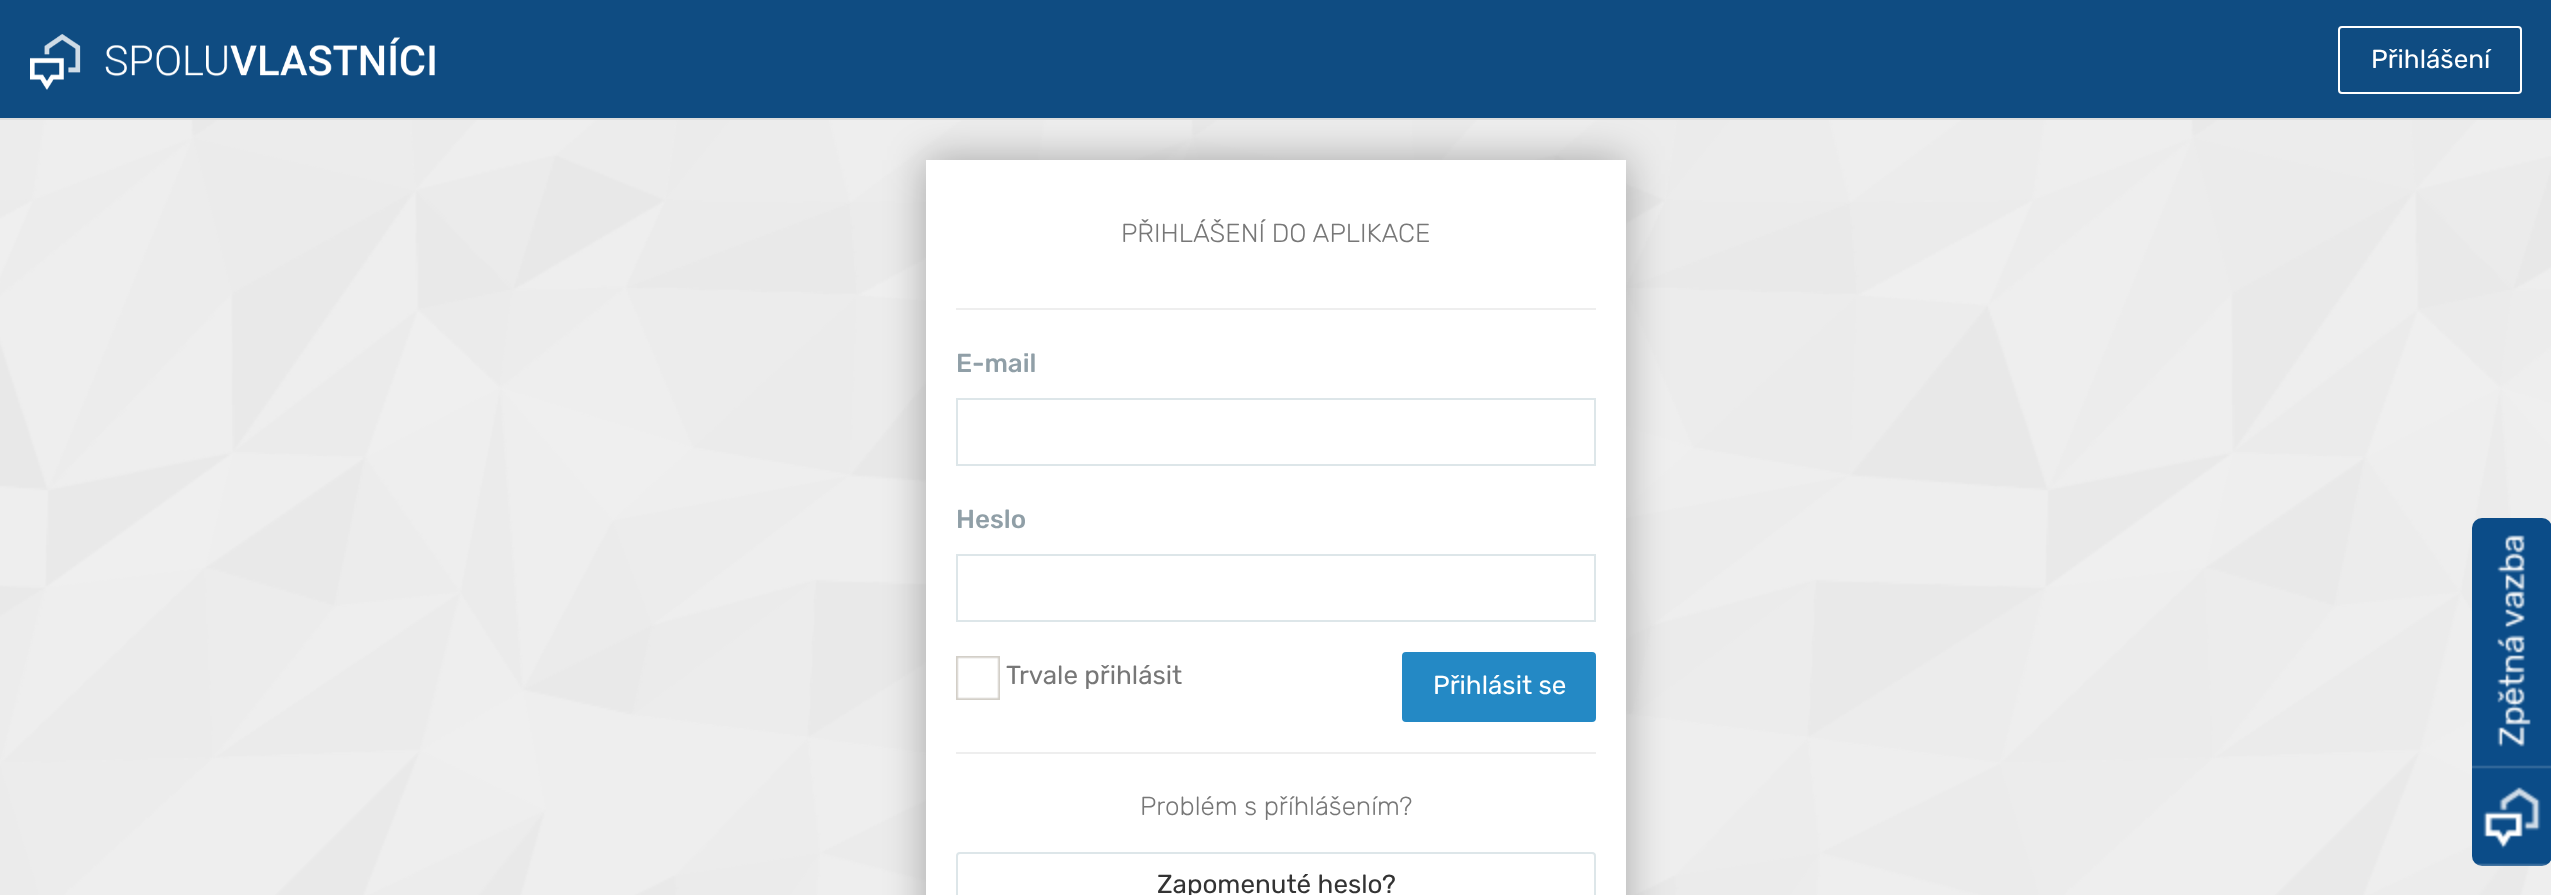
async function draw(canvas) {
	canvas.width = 2551;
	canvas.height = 895;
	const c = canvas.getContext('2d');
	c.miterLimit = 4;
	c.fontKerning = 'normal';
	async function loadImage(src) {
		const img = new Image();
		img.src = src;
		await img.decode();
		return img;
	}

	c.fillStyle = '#efefef';
	c.fillRect(0, 0, 2551, 895);
	c.drawImage(await loadImage('img2.png'), 0, 120, 2551, 775);
	c.fillStyle = '#0000004d';
	c.filter = 'blur(20px)';
	c.beginPath();
	c.rect(926, 160, 700, 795);
	c.fill();
	c.filter = 'none';
	c.fillStyle = '#0f4c82';
	c.fillRect(0, 0, 2551, 118);
	c.fillStyle = '#ddd';
	c.fillRect(0, 118, 2551, 2);
	c.drawImage(await loadImage('img1.png'), 30, 34, 405, 56);
	c.beginPath();
	c.roundRect(2339, 27, 182, 66, 3);
	c.strokeStyle = '#fff';
	c.lineWidth = 2;
	c.stroke();
	c.font = '26px Rubik';
	c.fillStyle = '#fff';
	c.fillText('Přihlášení', 2371, 68);
	c.fillRect(926, 160, 700, 735);
	c.font = '300 26px Rubik';
	c.fillStyle = '#777';
	c.fillText('PŘIHLÁŠENÍ DO APLIKACE', 1121, 242);
	c.fillStyle = '#eee';
	c.fillRect(956, 308, 640, 2);
	c.font = '500 26px Rubik';
	c.fillStyle = '#909fa7';
	c.fillText('E-mail', 956, 372);
	c.strokeStyle = '#dde6e9';
	c.strokeRect(957, 399, 638, 66);
	c.fillText('Heslo', 956, 528);
	c.strokeRect(957, 555, 638, 66);
	c.drawImage(await loadImage('img3.png'), 956, 656, 44, 44);
	c.font = '26px Rubik';
	c.fillStyle = '#777';
	c.fillText('Trvale přihlásit', 1006, 684);
	c.fillStyle = '#2489c5';
	c.beginPath();
	c.roundRect(1403, 653, 192, 68, 3);
	c.fill();
	c.strokeStyle = '#2489c5';
	c.stroke();
	c.fillStyle = '#fff';
	c.fillText('Přihlásit se', 1433, 694);
	c.fillStyle = '#eee';
	c.fillRect(956, 752, 640, 2);
	c.font = '300 26px Rubik';
	c.fillStyle = '#777';
	c.fillText('Problém s příhlášením?', 1140, 815);
	c.beginPath();
	c.roundRect(957, 853, 638, 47, 3);
	c.strokeStyle = '#dde6e9';
	c.stroke();
	c.font = '26px Rubik';
	c.fillStyle = '#333';
	c.fillText('Zapomenuté heslo?', 1157, 893);
	c.drawImage(await loadImage('img4.png'), 2472, 518, 79, 348);
}

draw(document.querySelector('canvas'));
